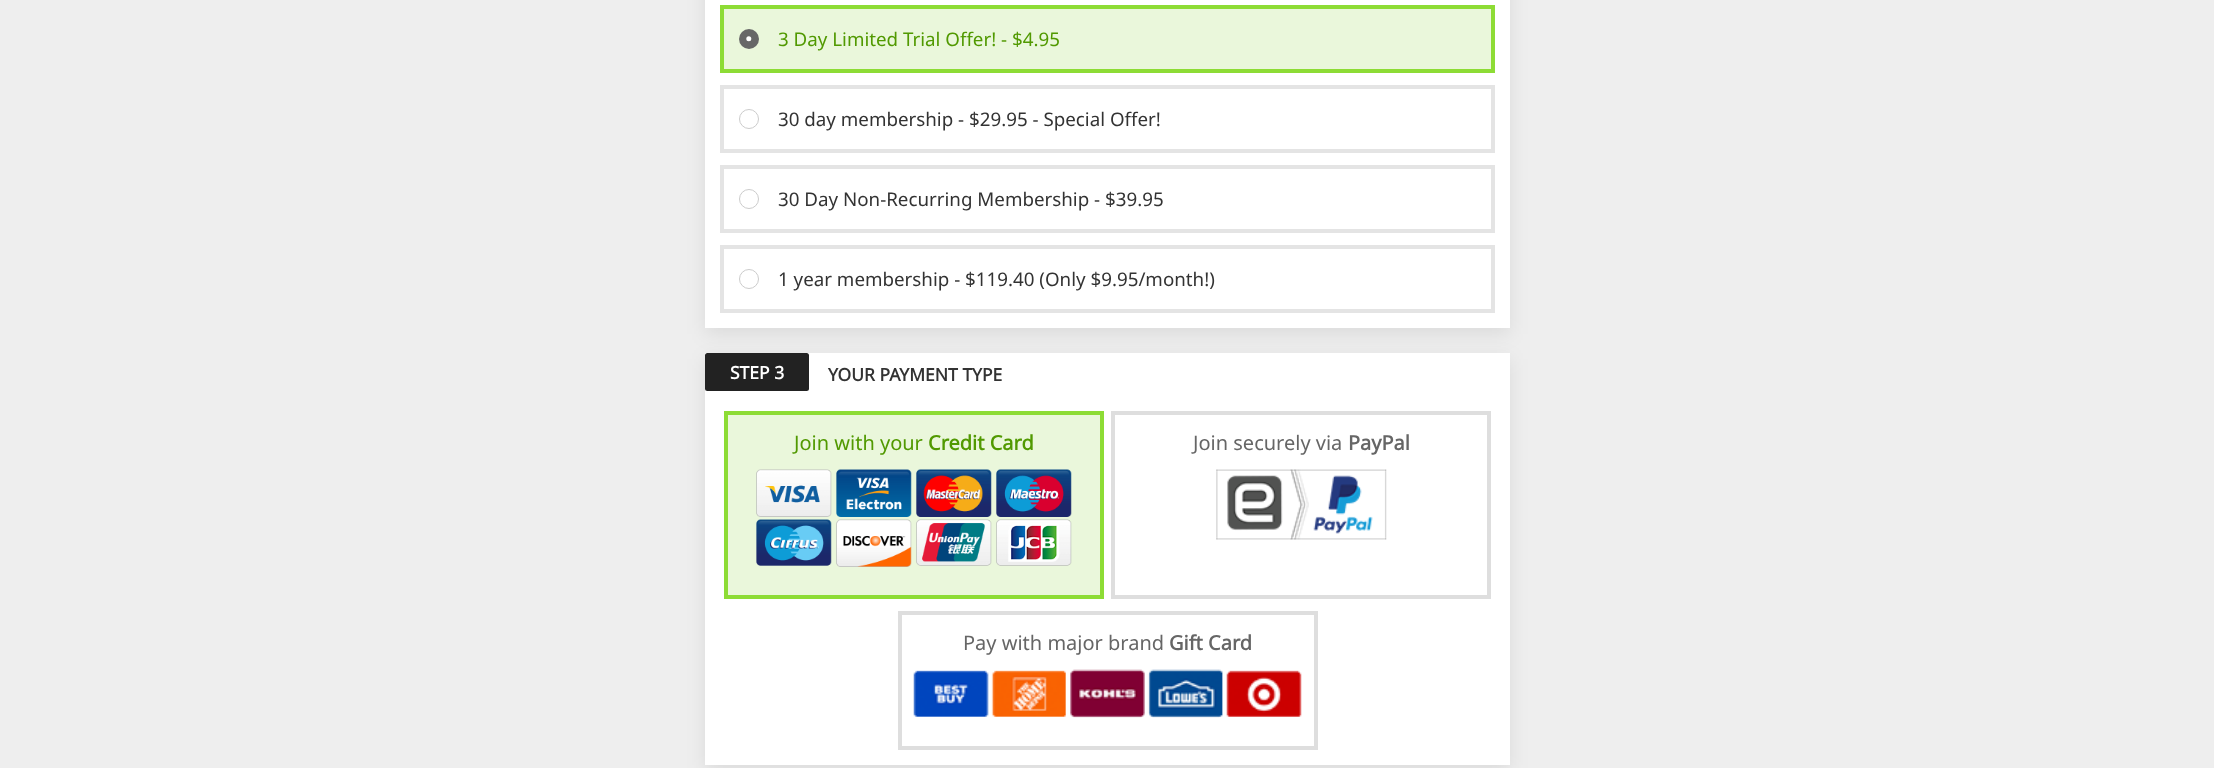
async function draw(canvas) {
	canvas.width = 2214;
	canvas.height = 768;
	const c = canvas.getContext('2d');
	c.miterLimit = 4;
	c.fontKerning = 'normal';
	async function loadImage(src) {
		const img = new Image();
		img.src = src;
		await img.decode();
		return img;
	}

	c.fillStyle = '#eee';
	c.fillRect(0, 0, 2214, 768);
	c.fillStyle = '#00000014';
	c.filter = 'blur(9.5px)';
	c.beginPath();
	c.rect(705, -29, 805, 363);
	c.fill();
	c.filter = 'none';
	c.fillStyle = '#fff';
	c.fillRect(705, 0, 805, 328);
	c.fillStyle = '#eaf7db';
	c.beginPath();
	c.rect(722, 7, 771, 64);
	c.fill();
	c.strokeStyle = '#8ddc35';
	c.lineWidth = 4;
	c.stroke();
	c.fillStyle = '#676767';
	c.beginPath();
	c.arc(749, 39, 10, 0, 2 * Math.PI);
	c.fill();
	c.fillStyle = '#fff';
	c.beginPath();
	c.arc(748.8, 38.8, 2.5, 0, 2 * Math.PI);
	c.fill();
	c.font = '18.75px Noto Sans';
	c.fillStyle = '#519901';
	c.fillText('3 Day Limited Trial Offer! - $4.95', 778, 46);
	c.strokeStyle = '#e4e4e4';
	c.strokeRect(722, 87, 771, 64);
	c.beginPath();
	c.arc(749, 119, 9.5, 0, 2 * Math.PI);
	c.strokeStyle = '#ccc';
	c.lineWidth = 1;
	c.stroke();
	c.fillStyle = '#333';
	c.fillText('30 day membership - $29.95 - Special Offer!', 778, 126);
	c.strokeStyle = '#e4e4e4';
	c.lineWidth = 4;
	c.strokeRect(722, 167, 771, 64);
	c.beginPath();
	c.arc(749, 199, 9.5, 0, 2 * Math.PI);
	c.strokeStyle = '#ccc';
	c.lineWidth = 1;
	c.stroke();
	c.fillText('30 Day Non-Recurring Membership - $39.95', 778, 206);
	c.strokeStyle = '#e4e4e4';
	c.lineWidth = 4;
	c.strokeRect(722, 247, 771, 64);
	c.beginPath();
	c.arc(749, 279, 9.5, 0, 2 * Math.PI);
	c.strokeStyle = '#ccc';
	c.lineWidth = 1;
	c.stroke();
	c.fillText('1 year membership - $119.40 (Only $9.95/month!)', 778, 286);
	c.fillStyle = '#00000014';
	c.filter = 'blur(9.5px)';
	c.beginPath();
	c.rect(705, 359, 805, 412);
	c.fill();
	c.filter = 'none';
	c.fillStyle = '#fff';
	c.fillRect(705, 353, 805, 412);
	c.fillStyle = '#222';
	c.beginPath();
	c.roundRect(705, 353, 104, 38, 2.5);
	c.fill();
	c.font = 'bold 17.5px Noto Sans';
	c.fillStyle = '#fff';
	c.fillText('STEP 3', 730, 379);
	c.fillStyle = '#333';
	c.fillText('YOUR PAYMENT TYPE', 828, 381);
	c.fillStyle = '#eaf7db';
	c.beginPath();
	c.rect(726, 413, 376, 184);
	c.fill();
	c.strokeStyle = '#8ddc35';
	c.lineWidth = 4;
	c.stroke();
	c.font = '20px Noto Sans';
	c.fillStyle = '#519901';
	c.fillText('Join with your', 794, 450);
	c.font = 'bold 20px Noto Sans';
	c.fillText('Credit Card', 928, 450);
	c.drawImage(await loadImage('img1.png'), 756, 469, 76, 48);
	c.drawImage(await loadImage('img2.png'), 836, 469, 76, 48);
	c.drawImage(await loadImage('img3.png'), 916, 469, 76, 48);
	c.drawImage(await loadImage('img4.png'), 996, 469, 76, 48);
	c.drawImage(await loadImage('img5.png'), 756, 519, 76, 47);
	c.drawImage(await loadImage('img6.png'), 836, 519, 76, 48);
	c.drawImage(await loadImage('img7.png'), 916, 519, 76, 47);
	c.drawImage(await loadImage('img8.png'), 996, 519, 76, 47);
	c.strokeStyle = '#dedede';
	c.strokeRect(1113, 413, 376, 184);
	c.font = '20px Noto Sans';
	c.fillStyle = '#666';
	c.fillText('Join securely via', 1193, 450);
	c.font = 'bold 20px Noto Sans';
	c.fillText('PayPal', 1348, 450);
	c.drawImage(await loadImage('img9.png'), 1216, 469, 171, 71);
	c.strokeRect(900, 613, 416, 135);
	c.font = '20px Noto Sans';
	c.fillText('Pay with major brand', 963, 650);
	c.font = 'bold 20px Noto Sans';
	c.fillText('Gift Card', 1169, 650);
	c.drawImage(await loadImage('img10.png'), 913, 669, 389, 49);
}

draw(document.querySelector('canvas'));
